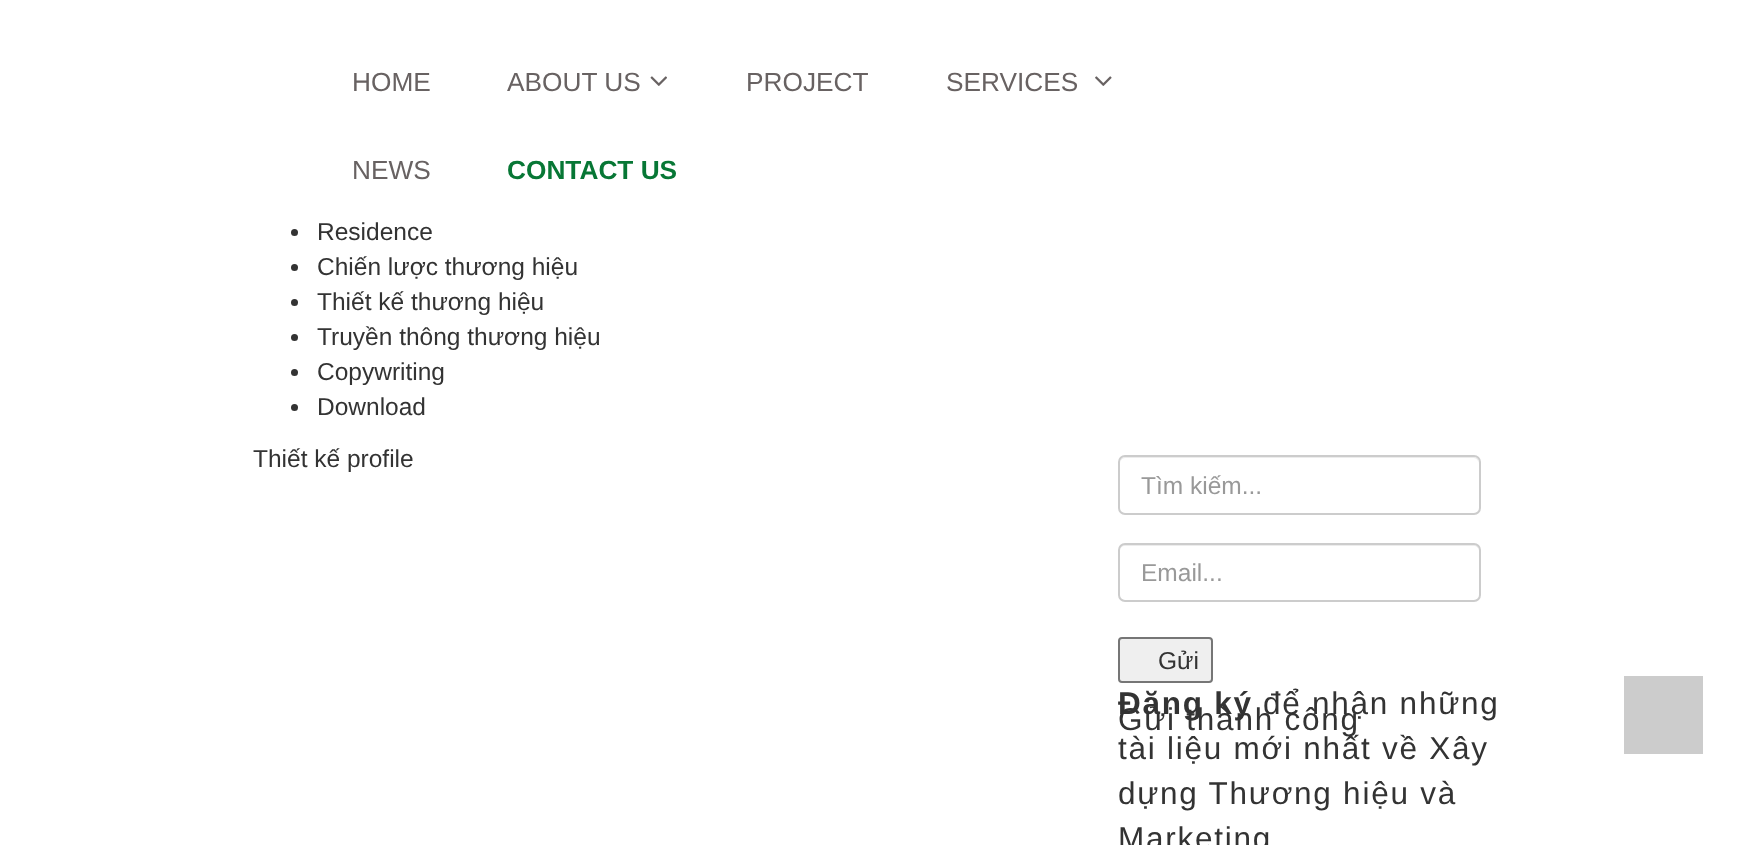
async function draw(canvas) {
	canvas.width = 1737;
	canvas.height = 845;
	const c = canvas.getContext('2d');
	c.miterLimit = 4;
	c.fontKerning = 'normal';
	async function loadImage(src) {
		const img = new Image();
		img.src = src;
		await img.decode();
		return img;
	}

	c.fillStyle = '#fff';
	c.fillRect(0, 0, 1737, 845);
	c.font = '26.25px Liberation Sans';
	c.fillStyle = '#686262';
	c.fillText('HOME', 352, 91);
	c.fillText('ABOUT US', 507, 91);
	c.drawImage(await loadImage('img1.png'), 650, 76, 17, 10);
	c.fillText('PROJECT', 746, 91);
	c.fillText('SERVICES', 946, 91);
	c.drawImage(await loadImage('img2.png'), 1095, 76, 17, 10);
	c.fillText('NEWS', 352, 179);
	c.font = 'bold 26.25px Liberation Sans';
	c.fillStyle = '#077735';
	c.fillText('CONTACT US', 507, 179);
	c.fillStyle = '#333';
	c.beginPath();
	c.arc(294.5, 232.5, 3.5, 0, 2 * Math.PI);
	c.fill();
	c.font = '24.5px Liberation Sans';
	c.fillText('Residence', 317, 240);
	c.beginPath();
	c.arc(294.5, 267.5, 3.5, 0, 2 * Math.PI);
	c.fill();
	c.fillText('Chiến lược thương hiệu', 317, 275);
	c.beginPath();
	c.arc(294.5, 302.5, 3.5, 0, 2 * Math.PI);
	c.fill();
	c.fillText('Thiết kế thương hiệu', 317, 310);
	c.beginPath();
	c.arc(294.5, 337.5, 3.5, 0, 2 * Math.PI);
	c.fill();
	c.fillText('Truyền thông thương hiệu', 317, 345);
	c.beginPath();
	c.arc(294.5, 372.5, 3.5, 0, 2 * Math.PI);
	c.fill();
	c.fillText('Copywriting', 317, 380);
	c.beginPath();
	c.arc(294.5, 407.5, 3.5, 0, 2 * Math.PI);
	c.fill();
	c.fillText('Download', 317, 415);
	c.fillText('Thiết kế profile', 253, 467);
	c.fillStyle = '#ececec';
	c.beginPath();
	c.moveTo(1125, 458);
	c.lineTo(1474, 458);
	c.bezierCurveTo(1476, 458, 1479, 461, 1479, 464);
	c.bezierCurveTo(1479, 461, 1478, 457, 1474, 457);
	c.lineTo(1125, 457);
	c.bezierCurveTo(1121, 457, 1120, 461, 1120, 464);
	c.bezierCurveTo(1120, 461, 1122, 458, 1125, 458);
	c.closePath();
	c.fill();
	c.beginPath();
	c.roundRect(1119, 456, 361, 58, 6);
	c.strokeStyle = '#ccc';
	c.lineWidth = 2;
	c.stroke();
	c.fillStyle = '#999';
	c.fillText('Tìm kiếm...', 1141, 494);
	c.fillStyle = '#ececec';
	c.beginPath();
	c.moveTo(1125, 546);
	c.lineTo(1474, 546);
	c.bezierCurveTo(1476, 546, 1479, 548, 1479, 551);
	c.bezierCurveTo(1479, 548, 1478, 544, 1474, 544);
	c.lineTo(1125, 544);
	c.bezierCurveTo(1121, 544, 1120, 548, 1120, 551);
	c.bezierCurveTo(1120, 548, 1122, 546, 1125, 546);
	c.closePath();
	c.fill();
	c.beginPath();
	c.roundRect(1119, 544, 361, 57, 6);
	c.stroke();
	c.fillStyle = '#999';
	c.fillText('Email...', 1141, 581);
	c.fillStyle = '#efefef';
	c.beginPath();
	c.roundRect(1119, 638, 93, 44, 3);
	c.fill();
	c.strokeStyle = '#767676';
	c.stroke();
	c.fillStyle = '#333';
	c.fillText('Gửi', 1158, 669);
	c.letterSpacing = '1.75px';
	c.font = 'bold 31.5px Liberation Sans';
	c.fillText('Đăng ký', 1118, 714);
	c.font = '31.5px Liberation Sans';
	for (const [text, x, y] of [
		['để nhận những', 1263, 714],
		['tài liệu mới nhất về Xây', 1118, 759],
		['dựng Thương hiệu và', 1118, 804],
		['Marketing', 1118, 849],
		['Gửi thành công', 1118, 730],
	]) {
		c.fillText(text, x, y);
	}
	c.fillStyle = '#ccc';
	c.fillRect(1624, 676, 79, 78);
}

draw(document.querySelector('canvas'));
